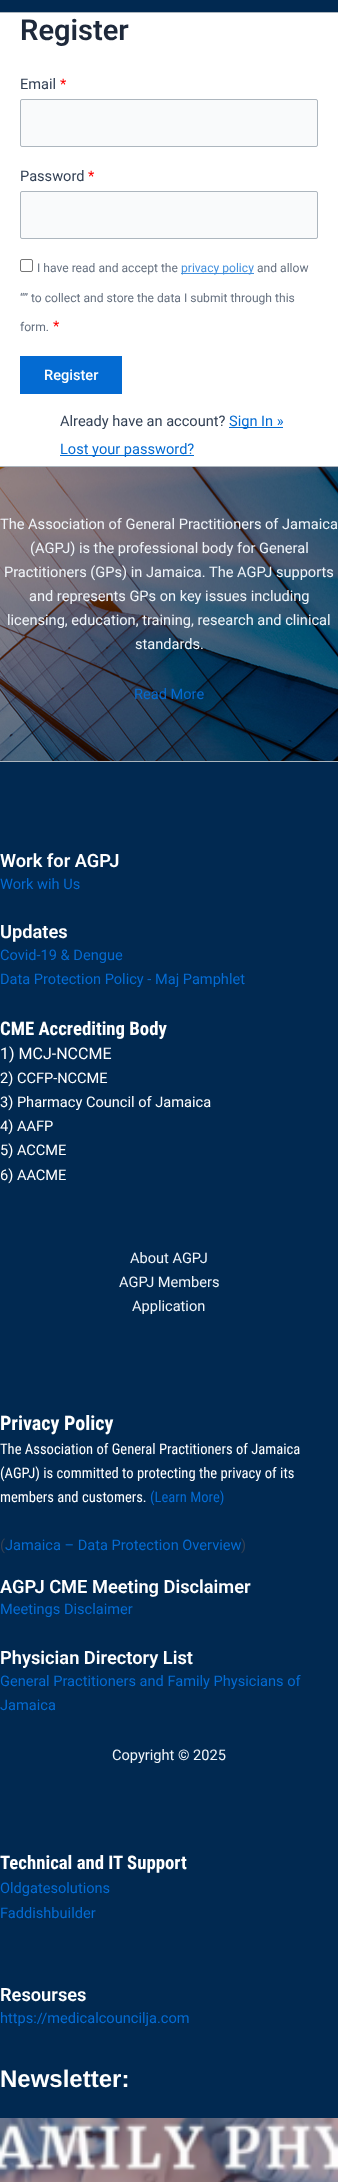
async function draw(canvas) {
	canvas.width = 338;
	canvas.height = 2182;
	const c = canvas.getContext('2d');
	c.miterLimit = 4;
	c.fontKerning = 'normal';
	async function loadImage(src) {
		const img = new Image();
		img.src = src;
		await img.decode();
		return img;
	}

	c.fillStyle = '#fff';
	c.fillRect(0, 0, 338, 2182);
	c.fillStyle = '#012951';
	c.fillRect(0, 0, 338, 12);
	c.fillStyle = '#adb6be';
	c.fillRect(0, 12, 338, 1);
	c.font = '600 29px Roboto';
	c.fillStyle = '#1e293b';
	c.fillText('Register', 20, 40);
	c.font = '14.6px Roboto';
	c.fillStyle = '#334155';
	c.fillText('Email', 20, 89);
	c.fillStyle = '#f00';
	c.fillText('*', 60, 89);
	c.fillStyle = '#f9fafb';
	c.beginPath();
	c.roundRect(20.5, 99.5, 297, 47, 1.5);
	c.fill();
	c.strokeStyle = '#adb6be';
	c.stroke();
	c.fillStyle = '#334155';
	c.fillText('Password', 20, 181);
	c.fillStyle = '#f00';
	c.fillText('*', 88, 181);
	c.fillStyle = '#f9fafb';
	c.beginPath();
	c.roundRect(20.5, 191.5, 297, 47, 1.5);
	c.fill();
	c.stroke();
	c.beginPath();
	c.roundRect(20.5, 259.5, 12, 12, 1.5);
	c.strokeStyle = '#767676';
	c.stroke();
	c.font = '12.1px Roboto';
	c.fillStyle = '#667180';
	c.fillText('I have read and accept the', 37, 272);
	c.fillStyle = '#4390dd';
	c.fillRect(181, 273, 73, 1);
	c.fillText('privacy policy', 181, 272);
	c.fillStyle = '#667180';
	for (const [text, x, y] of [
		['and allow', 257, 272],
		['“” to collect and store the data I submit through this', 20, 302],
		['form.', 20, 331],
	]) {
		c.fillText(text, x, y);
	}
	c.font = '14.6px Roboto';
	c.fillStyle = '#f00';
	c.fillText('*', 53, 331);
	c.fillStyle = '#046bd2';
	c.fillRect(20, 356, 102, 38);
	c.font = '500 14.6px Roboto';
	c.fillStyle = '#fff';
	c.fillText('Register', 44, 380);
	c.font = '14.6px Roboto';
	c.fillStyle = '#334155';
	c.fillText('Already have an account?', 60, 426);
	c.fillStyle = '#046bd2';
	c.fillRect(229, 427, 54, 1);
	c.fillText('Sign In »', 229, 426);
	c.fillRect(60, 455, 134, 1);
	c.fillText('Lost your password?', 60, 454);
	c.drawImage(await loadImage('img1.png'), 0, 467, 338, 294);
	c.fillStyle = '#adb6be';
	c.fillRect(0, 466, 338, 1);
	c.fillStyle = '#f0f5fa';
	for (const [text, x, y] of [
		['The Association of General Practitioners of Jamaica', 0, 529],
		['(AGPJ) is the professional body for General', 30, 553],
		['Practitioners (GPs) in Jamaica. The AGPJ supports', 4, 577],
		['and represents GPs on key issues including', 29, 601],
		['licensing, education, training, research and clinical', 7, 625],
		['standards.', 135, 649],
	]) {
		c.fillText(text, x, y);
	}
	c.fillStyle = '#046bd2';
	c.fillText('Read More', 134, 699);
	c.fillStyle = '#012951';
	c.fillRect(0, 762, 338, 1356);
	c.fillStyle = '#adb6be';
	c.fillRect(0, 761, 338, 1);
	c.font = '600 18.25px Roboto';
	c.fillStyle = '#fff';
	c.fillText('Work for AGPJ', 0, 867);
	c.font = '14.6px Roboto';
	c.fillStyle = '#046bd2';
	c.fillText('Work wih Us', 0, 889);
	c.font = '600 18.25px Roboto';
	c.fillStyle = '#fff';
	c.fillText('Updates', 0, 938);
	c.font = '14.6px Roboto';
	c.fillStyle = '#046bd2';
	c.fillText('Covid-19 & Dengue', 0, 960);
	c.fillText('Data Protection Policy - Maj Pamphlet', 0, 984);
	c.font = 'bold 18.75px Roboto Condensed';
	c.fillStyle = '#fff';
	c.fillText('CME Accrediting Body', 0, 1035);
	c.font = '16px Roboto';
	c.fillText('1) MCJ-NCCME', 0, 1059);
	c.font = '14.6px Roboto';
	for (const [text, x, y] of [
		['2) CCFP-NCCME', 0, 1083],
		['3) Pharmacy Council of Jamaica', 0, 1107],
		['4) AAFP', 0, 1131],
		['5) ACCME', 0, 1155],
		['6) AACME', 0, 1180],
	]) {
		c.fillText(text, x, y);
	}
	c.fillStyle = '#f0f5fa';
	for (const [text, x, y] of [
		['About AGPJ', 130, 1263],
		['AGPJ Members', 119, 1287],
		['Application', 132, 1311],
	]) {
		c.fillText(text, x, y);
	}
	c.font = 'bold 20px Roboto Condensed';
	c.fillStyle = '#fff';
	c.fillText('Privacy Policy', 0, 1430);
	c.font = '14.6px Roboto Condensed';
	for (const [text, x, y] of [
		['The Association of General Practitioners of Jamaica', 0, 1454],
		['(AGPJ) is committed to protecting the privacy of its', 0, 1478],
		['members and customers.', 0, 1502],
	]) {
		c.fillText(text, x, y);
	}
	c.fillStyle = '#046bd2';
	c.fillText('(Learn More)', 150, 1502);
	c.font = '14.6px Roboto';
	c.fillStyle = '#334155';
	c.fillText('(', 0, 1550);
	c.fillStyle = '#046bd2';
	c.fillText('Jamaica – Data Protection Overview', 5, 1550);
	c.fillStyle = '#334155';
	c.fillText(')', 241, 1550);
	c.font = '600 18.25px Roboto';
	c.fillStyle = '#fff';
	c.fillText('AGPJ CME Meeting Disclaimer', 0, 1593);
	c.font = '14.6px Roboto';
	c.fillStyle = '#046bd2';
	c.fillText('Meetings Disclaimer', 0, 1614);
	c.font = '600 18.25px Roboto';
	c.fillStyle = '#fff';
	c.fillText('Physician Directory List', 0, 1664);
	c.font = '14.6px Roboto';
	c.fillStyle = '#046bd2';
	c.fillText('General Practitioners and Family Physicians of', 0, 1686);
	c.fillText('Jamaica', 0, 1710);
	c.fillStyle = '#f0f5fa';
	c.fillText('Copyright © 2025', 112, 1760);
	c.font = 'bold 18.75px Roboto Condensed';
	c.fillStyle = '#fff';
	c.fillText('Technical and IT Support', 0, 1869);
	c.font = '14.6px Roboto';
	c.fillStyle = '#046bd2';
	c.fillText('Oldgatesolutions', 0, 1893);
	c.fillText('Faddishbuilder', 0, 1918);
	c.font = '600 18.25px Roboto';
	c.fillStyle = '#fff';
	c.fillText('Resourses', 0, 2001);
	c.font = '14.6px Roboto';
	c.fillStyle = '#046bd2';
	c.fillText('https://medicalcouncilja.com', 0, 2023);
	c.font = 'bold 24px Liberation Sans';
	c.fillStyle = '#fff';
	c.fillText('Newsletter:', 0, 2087);
	c.drawImage(await loadImage('img2.png'), 0, 2118, 338, 64);
}

draw(document.querySelector('canvas'));
